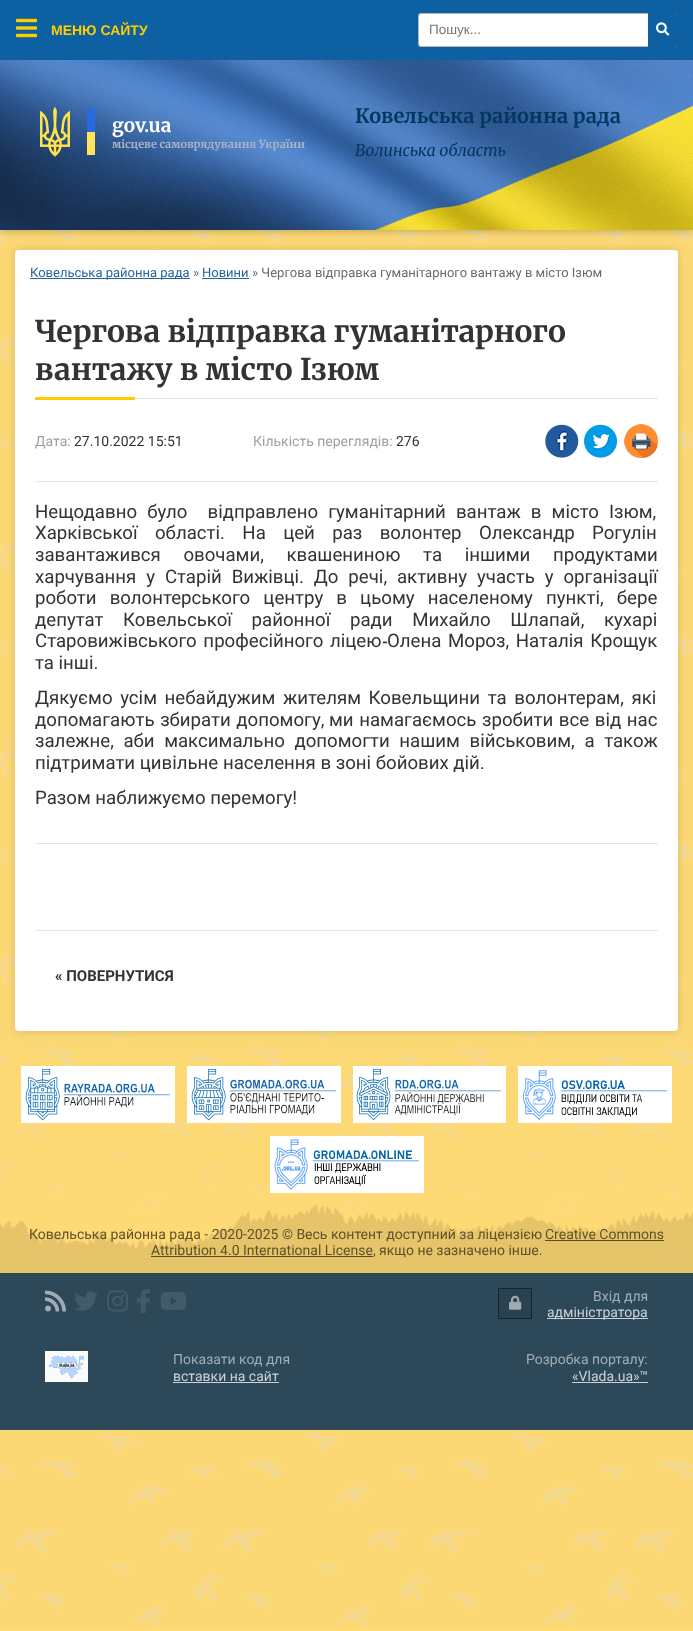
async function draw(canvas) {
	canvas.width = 693;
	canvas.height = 1631;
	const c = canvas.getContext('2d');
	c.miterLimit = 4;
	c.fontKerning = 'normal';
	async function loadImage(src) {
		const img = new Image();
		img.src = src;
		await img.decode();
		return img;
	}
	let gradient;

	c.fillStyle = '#ffda75';
	c.fillRect(0, 0, 693, 1631);
	c.drawImage(await loadImage('img1.png'), 0, 230, 693, 1397);
	gradient = c.createLinearGradient(347, 1016, 347, 1273);
	gradient.addColorStop(0, '#ffda7500');
	gradient.addColorStop(1, '#ffda75');
	c.fillStyle = gradient;
	c.fillRect(0, 1038, 693, 235);
	c.fillStyle = '#00000026';
	c.filter = 'blur(5px)';
	c.beginPath();
	c.roundRect(15, 250, 663, 781, 4);
	c.fill();
	c.filter = 'none';
	c.fillStyle = '#fff';
	c.beginPath();
	c.roundRect(15, 250, 663, 781, 4);
	c.fill();
	c.fillStyle = '#0000004d';
	c.filter = 'blur(5px)';
	c.beginPath();
	c.rect(0, 60, 693, 170);
	c.fill();
	c.filter = 'none';
	c.fillStyle = '#0d61a2';
	c.fillRect(0, 0, 693, 60);
	c.drawImage(await loadImage('img2.png'), 16, 18, 21, 20);
	c.font = 'bold 14px Liberation Sans';
	c.fillStyle = '#fc0';
	c.fillText('МЕНЮ САЙТУ', 51, 35);
	c.fillStyle = '#25669c';
	c.fillRect(30, 278, 160, 1);
	c.font = '13px Roboto';
	c.fillText('Ковельська районна рада', 30, 277);
	c.fillStyle = '#696969';
	c.fillText('»', 193, 277);
	c.fillStyle = '#25669c';
	c.fillText('Новини', 202, 277);
	c.fillRect(202, 278, 47, 1);
	c.fillStyle = '#696969';
	c.fillText('» Чергова відправка гуманітарного вантажу в місто Ізюм', 252, 277);
	c.fillStyle = '#e5e5e5';
	c.fillRect(135, 398, 523, 1);
	c.font = '300 30px Merriweather';
	c.fillStyle = '#333';
	c.fillText('Чергова відправка гуманітарного', 35, 342);
	c.fillText('вантажу в місто Ізюм', 35, 380);
	c.fillStyle = '#fc0';
	c.fillRect(35, 397, 100, 3);
	c.font = '14px Roboto';
	c.fillStyle = '#9f9f9f';
	c.fillText('Дата:', 35, 446);
	c.fillStyle = '#333';
	c.fillText('27.10.2022 15:51', 74, 446);
	c.fillStyle = '#9f9f9f';
	c.fillText('Кількість переглядів:', 253, 446);
	c.fillStyle = '#333';
	c.fillText('276', 396, 446);
	c.drawImage(await loadImage('img3.png'), 545, 424, 34, 34);
	c.drawImage(await loadImage('img4.png'), 584, 424, 33, 34);
	c.drawImage(await loadImage('img5.png'), 624, 424, 34, 34);
	c.fillStyle = '#e5e5e5';
	c.fillRect(35, 481, 623, 1);
	c.wordSpacing = '5.5px';
	c.font = '18.65px Roboto';
	c.fillStyle = '#333';
	c.fillText('Нещодавно було  відправлено гуманітарний вантаж в місто Ізюм,', 35, 518);
	c.wordSpacing = '12.75px';
	c.fillText('Харківської області. На цей раз волонтер Олександр Рогулін', 35, 539);
	c.wordSpacing = '18px';
	c.fillText('завантажився овочами, квашениною та іншими продуктами', 35, 561);
	c.wordSpacing = '5.25px';
	c.fillText('харчування у Старій Вижівці. До речі, активну участь у організації', 35, 583);
	c.wordSpacing = '8.5px';
	c.fillText('роботи волонтерського центру в цьому населеному пункті, бере', 35, 604);
	c.wordSpacing = '15px';
	c.fillText('депутат Ковельської районної ради Михайло Шлапай, кухарі', 35, 626);
	c.wordSpacing = '2px';
	c.fillText('Старовижівського професійного ліцею', 35, 647);
	c.wordSpacing = '0px';
	c.font = 'bold 15px Roboto';
	c.fillText('-', 382, 647);
	c.wordSpacing = '2px';
	c.font = '18.65px Roboto';
	c.fillText('Олена Мороз, Наталія Крощук', 387, 647);
	c.wordSpacing = '0px';
	c.fillText('та інші.', 35, 669);
	c.wordSpacing = '3px';
	c.fillText('Дякуємо усім небайдужим жителям Ковельщини та волонтерам, які', 35, 704);
	c.wordSpacing = '1px';
	c.fillText('допомагають збирати допомогу,', 35, 726);
	c.fillText('ми намагаємось зробити все від нас', 329, 726);
	c.wordSpacing = '5px';
	c.fillText('залежне, аби максимально допомогти нашим військовим, а також', 35, 747);
	c.wordSpacing = '0px';
	c.fillText('підтримати цивільне населення в зоні бойових дій.', 35, 769);
	c.fillText('Разом наближуємо перемогу!', 35, 804);
	c.fillStyle = '#e5e5e5';
	c.fillRect(35, 843, 623, 1);
	c.fillRect(35, 930, 623, 1);
	c.font = 'bold 15px Roboto';
	c.fillStyle = '#333';
	c.fillText('« ПОВЕРНУТИСЯ', 55, 981);
	c.fillStyle = '#fff';
	c.beginPath();
	c.roundRect(418.5, 13.5, 259, 33, 2.5);
	c.fill();
	c.strokeStyle = '#b7b7b7';
	c.stroke();
	c.font = '13.5px Liberation Sans';
	c.fillStyle = '#757575';
	c.fillText('Пошук...', 429, 34);
	c.fillStyle = '#0d61a2';
	c.beginPath();
	c.roundRect(648, 13, 30, 34, [0, 3, 3, 0]);
	c.fill();
	c.drawImage(await loadImage('img6.png'), 656, 22, 14, 14);
	c.drawImage(await loadImage('img7.png'), 0, 60, 693, 170);
	c.drawImage(await loadImage('img8.png'), 40, 107, 30, 50);
	c.fillStyle = '#2669e3';
	c.fillRect(87, 109, 8, 23);
	c.fillStyle = '#ffe358';
	c.fillRect(87, 132, 8, 23);
	c.font = '300 19px Merriweather';
	c.fillStyle = '#fff';
	c.fillText('gov.ua', 112, 132);
	c.font = '300 11px Merriweather';
	c.fillStyle = '#aab3c6';
	c.fillText('місцеве самоврядування України', 112, 148);
	c.font = '300 20px Merriweather';
	c.fillStyle = '#02375f';
	c.fillText('Ковельська районна рада', 355, 123);
	c.font = 'italic 300 16px Merriweather';
	c.fillText('Волинська область', 355, 156);
	c.drawImage(await loadImage('img9.png'), 0, 1204, 693, 69);
	c.drawImage(await loadImage('img10.png'), 21, 1066, 154, 57);
	c.drawImage(await loadImage('img11.png'), 187, 1066, 154, 57);
	c.drawImage(await loadImage('img12.png'), 353, 1066, 153, 57);
	c.drawImage(await loadImage('img13.png'), 518, 1066, 154, 57);
	c.drawImage(await loadImage('img14.png'), 270, 1136, 154, 57);
	c.font = '14px Roboto';
	c.fillStyle = '#5f512c';
	c.fillText('Ковельська районна рада - 2020-2025 © Весь контент доступний за ліцензією', 29, 1239);
	c.fillText('Creative Commons', 545, 1239);
	c.fillStyle = '#5c4e2a';
	c.fillRect(545, 1240, 119, 1);
	c.fillRect(151, 1256, 222, 1);
	c.fillStyle = '#5f512c';
	c.fillText('Attribution 4.0 International License, якщо не зазначено інше.', 151, 1255);
	c.fillStyle = '#2d4959';
	c.fillRect(0, 1273, 693, 157);
	c.drawImage(await loadImage('img15.png'), 45, 1290, 21, 22);
	c.drawImage(await loadImage('img16.png'), 74, 1291, 24, 20);
	c.drawImage(await loadImage('img17.png'), 107, 1290, 21, 22);
	c.drawImage(await loadImage('img18.png'), 137, 1289, 13, 24);
	c.drawImage(await loadImage('img19.png'), 160, 1292, 27, 18);
	c.fillStyle = '#294250';
	c.beginPath();
	c.rect(498.5, 1288.5, 33, 30);
	c.fill();
	c.strokeStyle = '#17242c';
	c.stroke();
	c.drawImage(await loadImage('img20.png'), 509, 1295, 13, 15);
	c.fillStyle = '#a1adb4';
	c.fillText('Вхід для', 593, 1301);
	c.fillStyle = '#cbd2d6';
	c.fillRect(547, 1318, 101, 1);
	c.fillText('адміністратора', 547, 1317);
	c.drawImage(await loadImage('img21.png'), 45, 1351, 43, 31);
	c.fillStyle = '#a1adb4';
	c.fillText('Показати код для', 173, 1364);
	c.fillStyle = '#cbd2d6';
	c.fillText('вставки на сайт', 173, 1381);
	c.fillRect(173, 1382, 106, 1);
	c.fillStyle = '#a1adb4';
	c.fillText('Розробка порталу:', 526, 1364);
	c.fillStyle = '#cbd2d6';
	c.fillText('«Vlada.ua»™', 572, 1381);
	c.fillRect(572, 1382, 76, 1);
}

draw(document.querySelector('canvas'));
